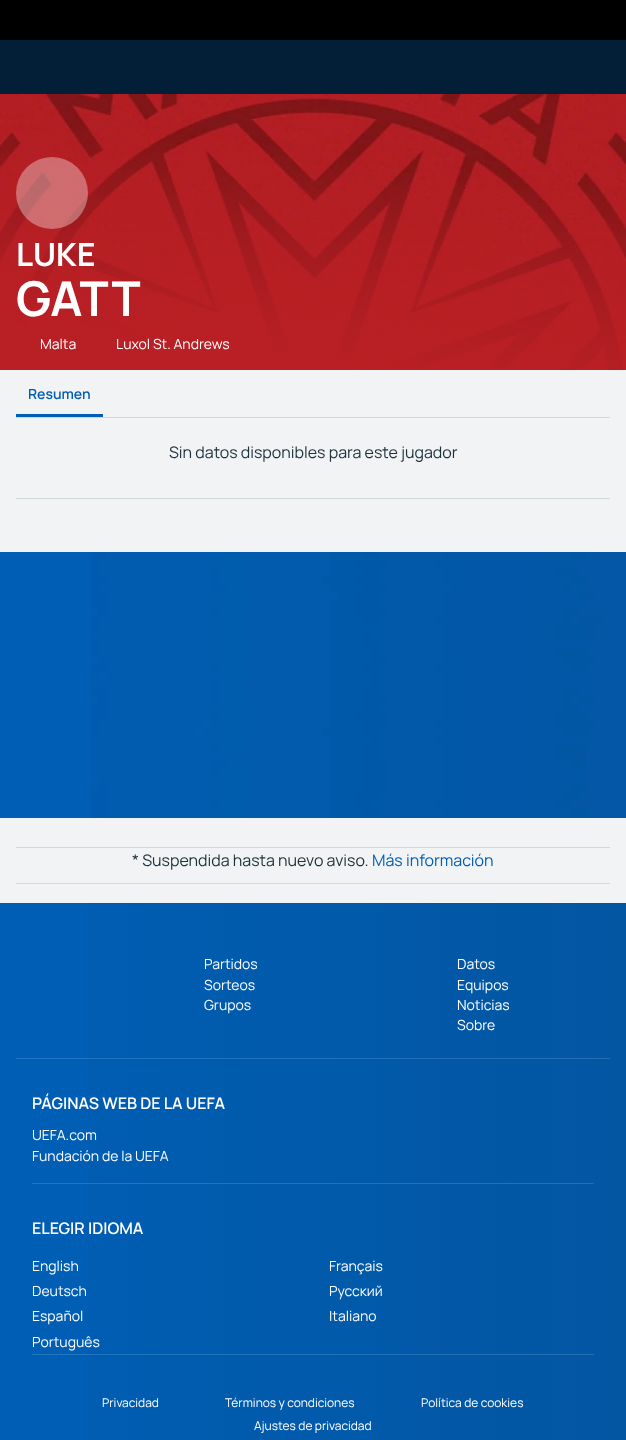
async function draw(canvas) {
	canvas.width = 626;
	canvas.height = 1440;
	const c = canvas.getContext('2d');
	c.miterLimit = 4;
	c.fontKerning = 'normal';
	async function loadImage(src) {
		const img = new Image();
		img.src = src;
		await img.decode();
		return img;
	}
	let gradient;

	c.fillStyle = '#005eb4';
	c.fillRect(0, 0, 626, 1440);
	c.fillStyle = '#000';
	c.fillRect(0, 0, 626, 40);
	c.fillStyle = '#031f38';
	c.fillRect(0, 40, 626, 54);
	c.drawImage(await loadImage('img1.png'), 0, 94, 626, 276);
	c.drawImage(await loadImage('img2.png'), 0, 126, 626, 244);
	c.fillStyle = '#ffffff59';
	c.beginPath();
	c.arc(52, 193, 36, 0, 2 * Math.PI);
	c.fill();
	c.font = 'bold 32px Manrope';
	c.fillStyle = '#fff';
	c.fillText('LUKE', 16, 266);
	c.font = 'bold 48px Manrope';
	c.fillText('GATT', 16, 316);
	c.font = '14px Manrope';
	c.fillText('Malta', 40, 349);
	c.fillText('Luxol St. Andrews', 116, 349);
	c.fillStyle = '#f2f3f4';
	c.fillRect(0, 370, 626, 182);
	c.fillStyle = '#d0d8db';
	c.fillRect(16, 417, 594, 1);
	c.font = '600 14px Manrope';
	c.fillStyle = '#005eb4';
	c.fillText('Resumen', 28, 399);
	c.fillRect(16, 414, 87, 3);
	c.font = '16px Manrope';
	c.fillStyle = '#1a313c';
	c.fillText('Sin datos disponibles para este jugador', 169, 458);
	for (const [x, y, w, h, color] of [
		[16, 498, 594, 1, '#d0d8db'],
		[0, 818, 626, 85, '#f2f3f4'],
		[16, 847, 594, 1, '#d0d8db'],
	]) {
		c.fillStyle = color;
		c.fillRect(x, y, w, h);
	}
	c.fillStyle = '#1a313c';
	c.fillText('* Suspendida hasta nuevo aviso.', 132, 866);
	c.fillStyle = '#005eb4';
	c.fillText('Más información', 372, 866);
	c.fillStyle = '#d0d8db';
	c.fillRect(16, 883, 594, 1);
	gradient = c.createLinearGradient(0, 1319, 626, 1319);
	gradient.addColorStop(0, '#005eb4');
	gradient.addColorStop(1, '#0356a2');
	c.fillStyle = gradient;
	c.fillRect(87, 903, 539, 537);
	c.font = '14px Manrope';
	c.fillStyle = '#fff';
	for (const [text, x, y] of [
		['Partidos', 204, 969],
		['Sorteos', 204, 990],
		['Grupos', 204, 1010],
		['Datos', 457, 969],
		['Equipos', 457, 990],
		['Noticias', 457, 1010],
		['Sobre', 457, 1030],
	]) {
		c.fillText(text, x, y);
	}
	c.fillStyle = '#aad7f133';
	c.fillRect(16, 1058, 594, 1);
	c.font = '600 16px Manrope';
	c.fillStyle = '#fff';
	c.fillText('PÁGINAS WEB DE LA UEFA', 32, 1109);
	c.font = '14px Manrope';
	c.fillText('UEFA.com', 32, 1140);
	c.fillText('Fundación de la UEFA', 32, 1161);
	c.fillStyle = '#aad7f133';
	c.fillRect(32, 1183, 562, 1);
	c.font = '600 16px Manrope';
	c.fillStyle = '#fff';
	c.fillText('ELEGIR IDIOMA', 32, 1234);
	c.font = '14px Manrope';
	for (const [text, x, y] of [
		['English', 32, 1271],
		['Français', 329, 1271],
		['Deutsch', 32, 1296],
		['Русский', 329, 1296],
		['Español', 32, 1321],
		['Italiano', 329, 1321],
		['Português', 32, 1347],
	]) {
		c.fillText(text, x, y);
	}
	c.fillStyle = '#aad7f133';
	c.fillRect(32, 1354, 562, 1);
	c.font = '12px Manrope';
	c.fillStyle = '#fff';
	for (const [text, x, y] of [
		['Privacidad', 102, 1407],
		['Términos y condiciones', 225, 1407],
		['Política de cookies', 421, 1407],
		['Ajustes de privacidad', 254, 1430],
	]) {
		c.fillText(text, x, y);
	}
	c.drawImage(await loadImage('img3.png'), 90, 552, 536, 266);
}

draw(document.querySelector('canvas'));
